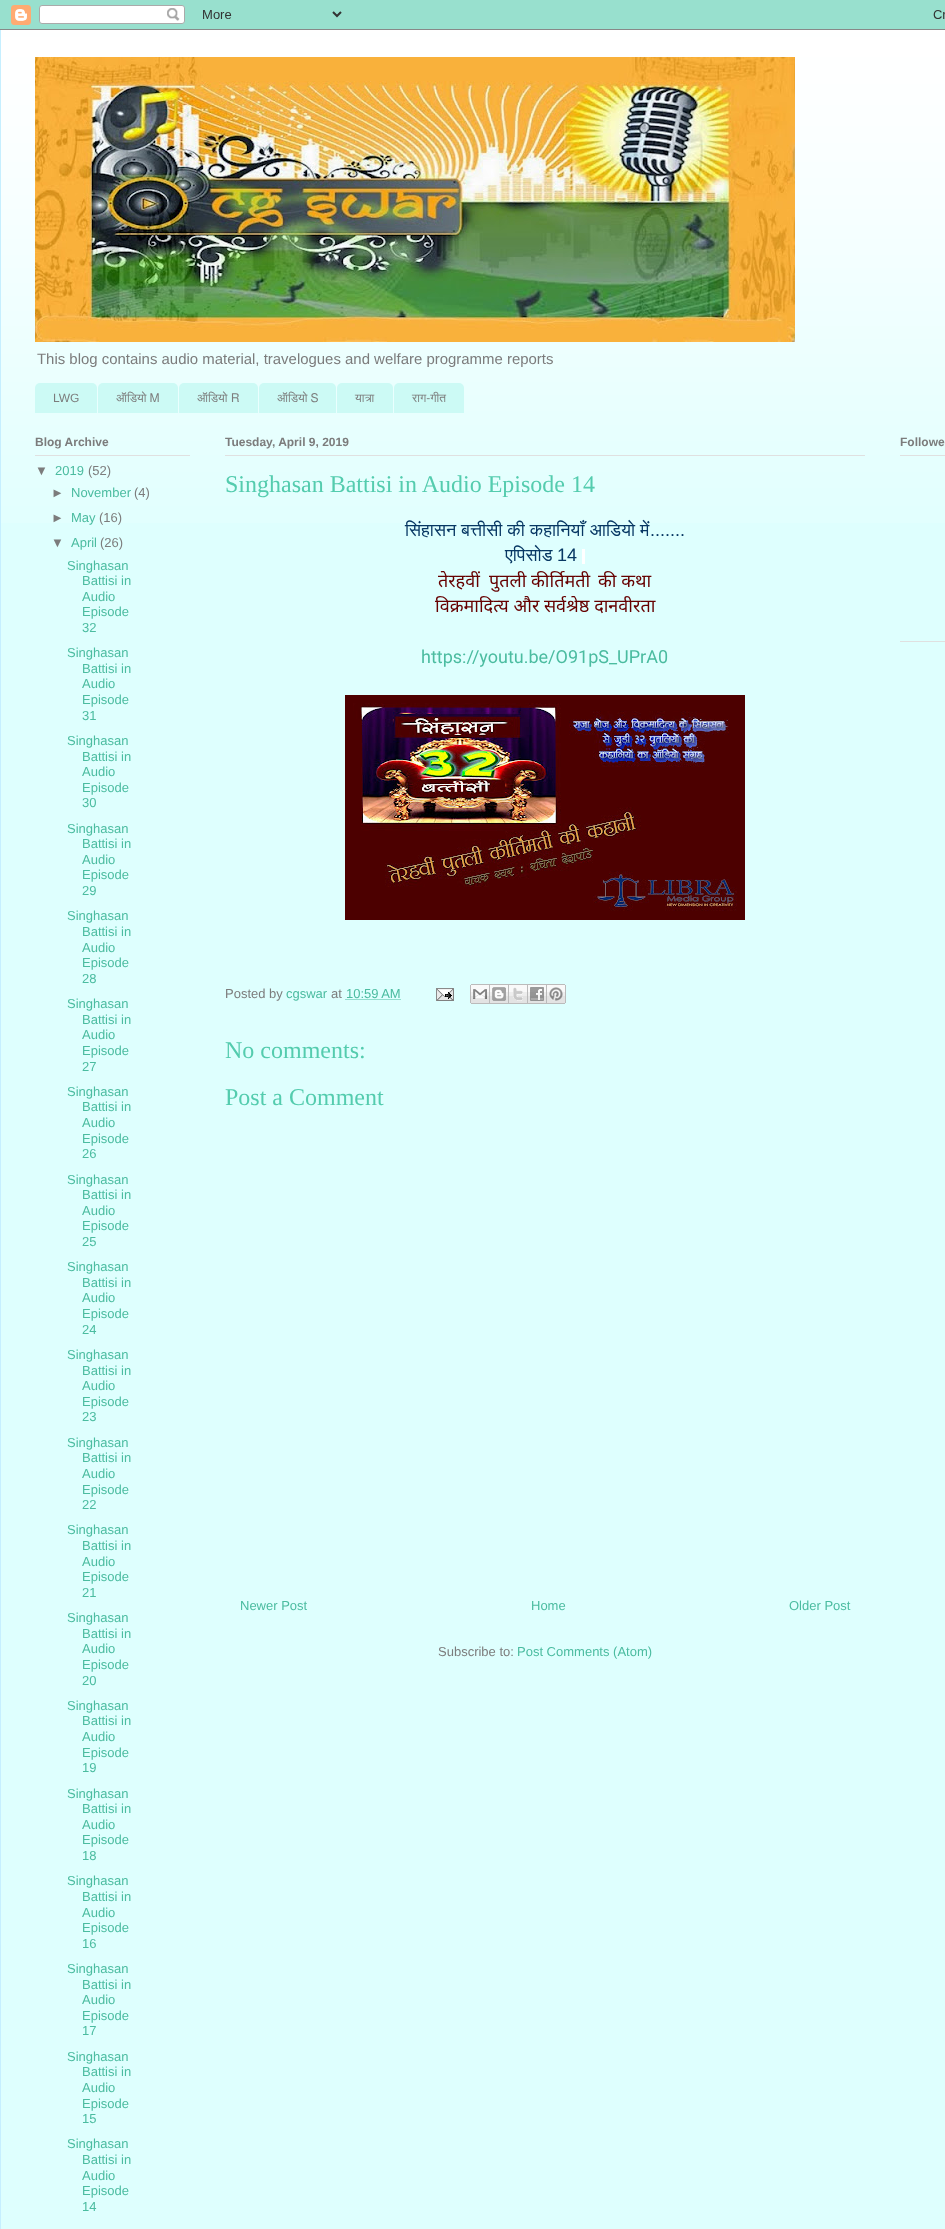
async function draw(canvas) {
	canvas.width = 945;
	canvas.height = 2229;
	const c = canvas.getContext('2d');
	c.miterLimit = 4;
	c.fontKerning = 'normal';
	async function loadImage(src) {
		const img = new Image();
		img.src = src;
		await img.decode();
		return img;
	}

	c.fillStyle = '#54ccae';
	c.fillRect(0, 0, 945, 2229);
	c.drawImage(await loadImage('img1.png'), 0, 0, 945, 30);
	c.fillStyle = '#defffe';
	c.fillRect(1, 37, 944, 2192);
	c.drawImage(await loadImage('img2.png'), 1, 30, 944, 493);
	c.fillStyle = '#c6efff';
	c.fillRect(0, 30, 1, 2199);
	c.drawImage(await loadImage('img3.png'), 35, 57, 760, 285);
	c.font = '14.95px Liberation Sans';
	c.fillStyle = '#7c7c7c';
	c.fillText('This blog contains audio material, travelogues and welfare programme reports', 37, 364);
	c.fillStyle = '#ccfaf5';
	c.beginPath();
	c.roundRect(35, 383, 62, 30, [5, 5, 0, 0]);
	c.fill();
	c.font = '12px Liberation Sans';
	c.fillStyle = '#7c7c7c';
	c.fillText('LWG', 53, 402);
	c.fillStyle = '#ccfaf5';
	c.beginPath();
	c.roundRect(98, 383, 80, 30, [5, 5, 0, 0]);
	c.fill();
	c.font = '12px FreeSans';
	c.fillStyle = '#7c7c7c';
	c.fillText('ऑडि‍यो M', 116, 402);
	c.fillStyle = '#ccfaf5';
	c.beginPath();
	c.roundRect(179, 383, 79, 30, [5, 5, 0, 0]);
	c.fill();
	c.wordSpacing = '0.5px';
	c.fillStyle = '#7c7c7c';
	c.fillText('ऑडि‍यो R', 197, 402);
	c.fillStyle = '#ccfaf5';
	c.beginPath();
	c.roundRect(259, 383, 77, 30, [5, 5, 0, 0]);
	c.fill();
	c.wordSpacing = '0px';
	c.fillStyle = '#7c7c7c';
	c.fillText('ऑडि‍यो S', 277, 402);
	c.fillStyle = '#ccfaf5';
	c.beginPath();
	c.roundRect(337, 383, 56, 30, [5, 5, 0, 0]);
	c.fill();
	c.fillStyle = '#7c7c7c';
	c.fillText('यात्रा', 355, 402);
	c.fillStyle = '#ccfaf5';
	c.beginPath();
	c.roundRect(394, 383, 70, 30, [5, 5, 0, 0]);
	c.fill();
	c.fillStyle = '#7c7c7c';
	c.fillText('राग-गीत', 412, 402);
	c.fillStyle = '#e0e0e0';
	c.fillRect(35, 455, 155, 1);
	c.font = 'bold 12px Liberation Sans';
	c.fillStyle = '#7c7c7c';
	c.fillText('Blog Archive', 35, 446);
	c.font = '13px Liberation Sans';
	c.fillText('▼', 35, 475);
	c.fillStyle = '#4bbca0';
	c.fillText('2019', 55, 475);
	c.fillStyle = '#7c7c7c';
	c.fillText('(52)', 88, 475);
	c.fillText('►', 51, 497);
	c.fillStyle = '#4bbca0';
	c.fillText('November', 71, 497);
	c.fillStyle = '#7c7c7c';
	c.fillText('(4)', 134, 497);
	c.fillText('►', 51, 522);
	c.fillStyle = '#4bbca0';
	c.fillText('May', 71, 522);
	c.fillStyle = '#7c7c7c';
	c.fillText('(16)', 99, 522);
	c.fillText('▼', 51, 547);
	c.fillStyle = '#4bbca0';
	c.fillText('April', 71, 547);
	c.fillStyle = '#7c7c7c';
	c.fillText('(26)', 100, 547);
	c.fillStyle = '#4bbca0';
	for (const [text, x, y] of [
		['Singhasan', 67, 570],
		['Battisi in', 82, 585],
		['Audio', 82, 601],
		['Episode', 82, 616],
		['32', 82, 632],
		['Singhasan', 67, 657],
		['Battisi in', 82, 673],
		['Audio', 82, 688],
		['Episode', 82, 704],
		['31', 82, 720],
		['Singhasan', 67, 745],
		['Battisi in', 82, 761],
		['Audio', 82, 776],
		['Episode', 82, 792],
		['30', 82, 807],
		['Singhasan', 67, 833],
		['Battisi in', 82, 848],
		['Audio', 82, 864],
		['Episode', 82, 879],
		['29', 82, 895],
		['Singhasan', 67, 920],
		['Battisi in', 82, 936],
		['Audio', 82, 952],
		['Episode', 82, 967],
		['28', 82, 983],
		['Singhasan', 67, 1008],
		['Battisi in', 82, 1024],
		['Audio', 82, 1039],
		['Episode', 82, 1055],
		['27', 82, 1071],
		['Singhasan', 67, 1096],
		['Battisi in', 82, 1111],
		['Audio', 82, 1127],
		['Episode', 82, 1143],
		['26', 82, 1158],
		['Singhasan', 67, 1184],
		['Battisi in', 82, 1199],
		['Audio', 82, 1215],
		['Episode', 82, 1230],
		['25', 82, 1246],
		['Singhasan', 67, 1271],
		['Battisi in', 82, 1287],
		['Audio', 82, 1302],
		['Episode', 82, 1318],
		['24', 82, 1334],
		['Singhasan', 67, 1359],
		['Battisi in', 82, 1375],
		['Audio', 82, 1390],
		['Episode', 82, 1406],
		['23', 82, 1421],
		['Singhasan', 67, 1447],
		['Battisi in', 82, 1462],
		['Audio', 82, 1478],
		['Episode', 82, 1494],
		['22', 82, 1509],
		['Singhasan', 67, 1534],
		['Battisi in', 82, 1550],
		['Audio', 82, 1566],
		['Episode', 82, 1581],
		['21', 82, 1597],
		['Singhasan', 67, 1622],
		['Battisi in', 82, 1638],
		['Audio', 82, 1653],
		['Episode', 82, 1669],
		['20', 82, 1685],
		['Singhasan', 67, 1710],
		['Battisi in', 82, 1725],
		['Audio', 82, 1741],
		['Episode', 82, 1757],
		['19', 82, 1772],
		['Singhasan', 67, 1798],
		['Battisi in', 82, 1813],
		['Audio', 82, 1829],
		['Episode', 82, 1844],
		['18', 82, 1860],
		['Singhasan', 67, 1885],
		['Battisi in', 82, 1901],
		['Audio', 82, 1917],
		['Episode', 82, 1932],
		['16', 82, 1948],
		['Singhasan', 67, 1973],
		['Battisi in', 82, 1989],
		['Audio', 82, 2004],
		['Episode', 82, 2020],
		['17', 82, 2035],
		['Singhasan', 67, 2061],
		['Battisi in', 82, 2076],
		['Audio', 82, 2092],
		['Episode', 82, 2108],
		['15', 82, 2123],
		['Singhasan', 67, 2148],
		['Battisi in', 82, 2164],
		['Audio', 82, 2180],
		['Episode', 82, 2195],
		['14', 82, 2211],
	]) {
		c.fillText(text, x, y);
	}
	c.fillStyle = '#e0e0e0';
	c.fillRect(225, 455, 640, 1);
	c.font = 'bold 12px Liberation Sans';
	c.fillStyle = '#7c7c7c';
	c.fillText('Tuesday, April 9, 2019', 225, 446);
	c.font = '24px Liberation Serif';
	c.fillStyle = '#54ccae';
	c.fillText('Singhasan Battisi in Audio Episode 14', 225, 492);
	c.wordSpacing = '0.5px';
	c.font = '18px FreeSans';
	c.fillStyle = '#073763';
	c.fillText('सिंहासन बत्तीसी की कहानियाँ आडियो में', 405, 536);
	c.wordSpacing = '0px';
	c.font = '18px Liberation Sans';
	c.fillText('.......', 650, 536);
	c.font = '18px FreeSans';
	c.fillText('एपिसोड', 505, 561);
	c.font = '18px Liberation Sans';
	c.fillText('14', 557, 561);
	c.fillStyle = '#fff';
	c.fillRect(582, 549, 3, 15);
	c.font = '18px Noto Sans';
	c.fillStyle = '#600';
	for (const [text, x, y] of [
		['तेरहवीं', 438, 587],
		['पुतली कीर्तिमती', 489, 587],
		['की कथा', 598, 587],
		['विक्रमादित्य और सर्वश्रेष्ठ दानवीरता', 435, 612],
	]) {
		c.fillText(text, x, y);
	}
	c.font = '18px Roboto';
	c.fillStyle = '#4bbca0';
	c.fillText('https://youtu.be/O91pS_UPrA0', 421, 663);
	c.drawImage(await loadImage('img4.png'), 345, 695, 400, 225);
	c.font = '13px Liberation Sans';
	c.fillStyle = '#7c7c7c';
	c.fillText('Posted by', 225, 998);
	c.fillStyle = '#4bbca0';
	c.fillText('cgswar', 286, 998);
	c.fillStyle = '#7c7c7c';
	c.fillText('at', 331, 998);
	c.fillStyle = '#4bbca0';
	c.fillText('10:59 AM', 346, 998);
	c.beginPath();
	c.moveTo(345.5, 999.5);
	c.lineTo(400.5, 999.5);
	c.strokeStyle = '#4bbca0';
	c.setLineDash([1, 1]);
	c.stroke();
	c.drawImage(await loadImage('img5.png'), 436, 988, 18, 13);
	c.drawImage(await loadImage('img6.png'), 470, 984, 20, 20);
	c.drawImage(await loadImage('img7.png'), 490, 984, 19, 20);
	c.drawImage(await loadImage('img8.png'), 509, 984, 19, 20);
	c.drawImage(await loadImage('img9.png'), 528, 984, 19, 20);
	c.drawImage(await loadImage('img10.png'), 547, 984, 19, 20);
	c.font = '24px Liberation Serif';
	c.fillStyle = '#54ccae';
	c.fillText('No comments:', 225, 1058);
	c.fillText('Post a Comment', 225, 1105);
	c.font = '13px Liberation Sans';
	c.fillStyle = '#4bbca0';
	for (const [text, x, y] of [
		['Newer Post', 240, 1610],
		['Home', 531, 1610],
		['Older Post', 789, 1610],
	]) {
		c.fillText(text, x, y);
	}
	c.fillStyle = '#7c7c7c';
	c.fillText('Subscribe to:', 438, 1656);
	c.fillStyle = '#4bbca0';
	c.fillText('Post Comments (Atom)', 517, 1656);
	c.fillStyle = '#e0e0e0';
	c.fillRect(900, 641, 45, 1);
	c.fillRect(900, 455, 45, 1);
	c.font = 'bold 12px Liberation Sans';
	c.fillStyle = '#7c7c7c';
	c.fillText('Followe', 900, 446);
}

draw(document.querySelector('canvas'));
